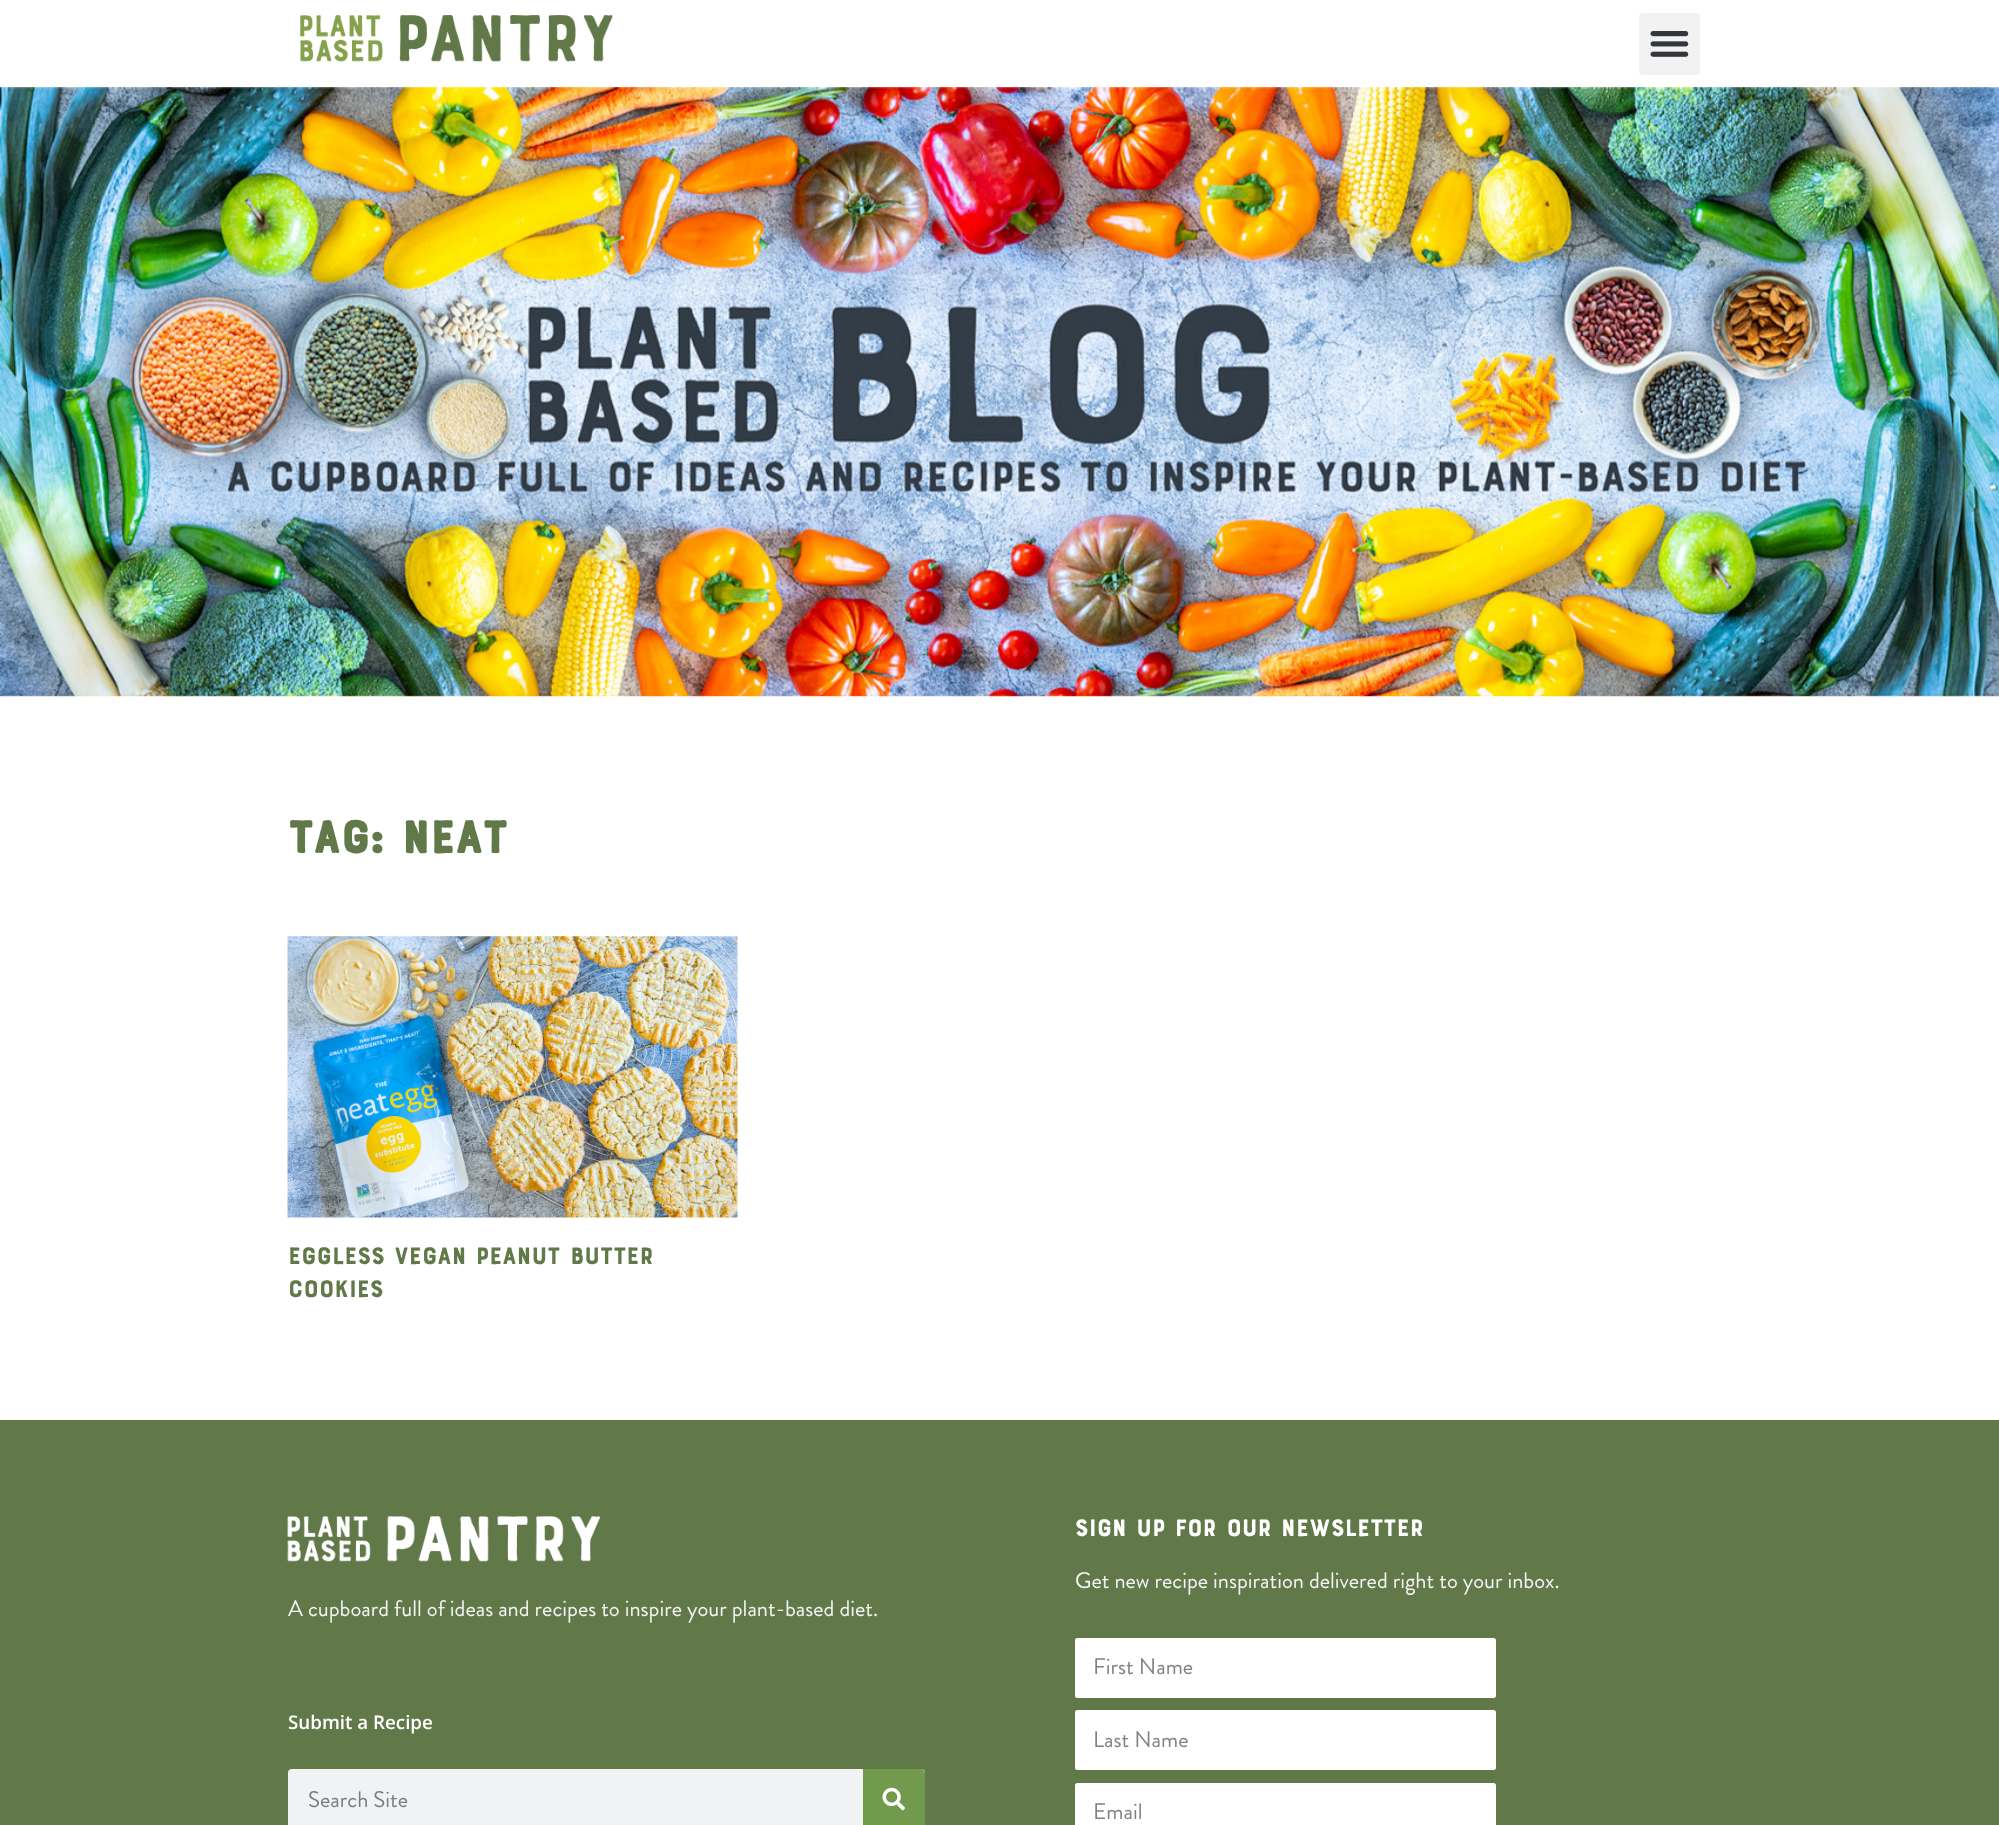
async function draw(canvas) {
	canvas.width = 1999;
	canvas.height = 1825;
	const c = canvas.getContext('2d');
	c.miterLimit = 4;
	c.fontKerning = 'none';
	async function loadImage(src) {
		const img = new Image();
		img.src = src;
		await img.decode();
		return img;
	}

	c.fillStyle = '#fff';
	c.fillRect(0, 0, 1999, 1825);
	c.drawImage(await loadImage('img1.png'), 300, 15, 313, 47);
	c.fillStyle = '#f2f2f2';
	c.beginPath();
	c.roundRect(1639, 13, 61, 62, 4);
	c.fill();
	c.drawImage(await loadImage('img2.png'), 1650, 31, 39, 26);
	c.drawImage(await loadImage('img3.png'), 0, 87, 1999, 610);
	c.font = 'bold 47.5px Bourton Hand';
	c.fillStyle = '#617849';
	c.fillText('Tag: neat', 288, 853);
	c.drawImage(await loadImage('img4.png'), 287, 936, 451, 282);
	c.font = '25px Bourton Hand';
	c.fillText('Eggless Vegan Peanut Butter', 288, 1264);
	c.fillText('Cookies', 288, 1297);
	c.fillRect(0, 1420, 1999, 405);
	c.drawImage(await loadImage('img5.png'), 287, 1516, 313, 46);
	c.font = '22.5px Brandon Grotesque';
	c.fillStyle = '#f4f4f4';
	c.fillText('A cupboard full of ideas and recipes to inspire your plant-based diet.', 288, 1616);
	c.font = '600 18.75px Open Sans';
	c.fillStyle = '#fff';
	c.fillText('Submit a Recipe', 288, 1729);
	c.fillStyle = '#f1f2f3';
	c.beginPath();
	c.roundRect(288, 1769, 637, 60, 4);
	c.fill();
	c.font = '22.5px Brandon Grotesque';
	c.fillStyle = '#7b7c82';
	c.fillText('Search Site', 308, 1807);
	c.fillStyle = '#719a4c';
	c.beginPath();
	c.moveTo(863, 1769);
	c.lineTo(921, 1769);
	c.bezierCurveTo(923, 1769, 925, 1771, 925, 1773);
	c.lineTo(925, 1825);
	c.bezierCurveTo(925, 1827, 923, 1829, 921, 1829);
	c.lineTo(863, 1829);
	c.closePath();
	c.fill();
	c.drawImage(await loadImage('img6.png'), 882, 1787, 23, 24);
	c.font = '25px Bourton Hand';
	c.fillStyle = '#fff';
	c.fillText('Sign Up for Our Newsletter', 1075, 1536);
	c.font = '22.5px Brandon Grotesque';
	c.fillStyle = '#f4f4f4';
	c.fillText('Get new recipe inspiration delivered right to your inbox.', 1075, 1588);
	c.fillStyle = '#fff';
	c.beginPath();
	c.roundRect(1076.5, 1639.5, 418, 57, 1);
	c.fill();
	c.strokeStyle = '#fff';
	c.lineWidth = 3;
	c.stroke();
	c.fillStyle = '#808286';
	c.fillText('First Name', 1093, 1674);
	c.fillStyle = '#fff';
	c.beginPath();
	c.roundRect(1076.5, 1711.5, 418, 57, 1);
	c.fill();
	c.stroke();
	c.fillStyle = '#808286';
	c.fillText('Last Name', 1093, 1747);
	c.fillStyle = '#fff';
	c.beginPath();
	c.roundRect(1076.5, 1784.5, 418, 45, 1);
	c.fill();
	c.stroke();
	c.fillStyle = '#808286';
	c.fillText('Email', 1093, 1819);
}

draw(document.querySelector('canvas'));
